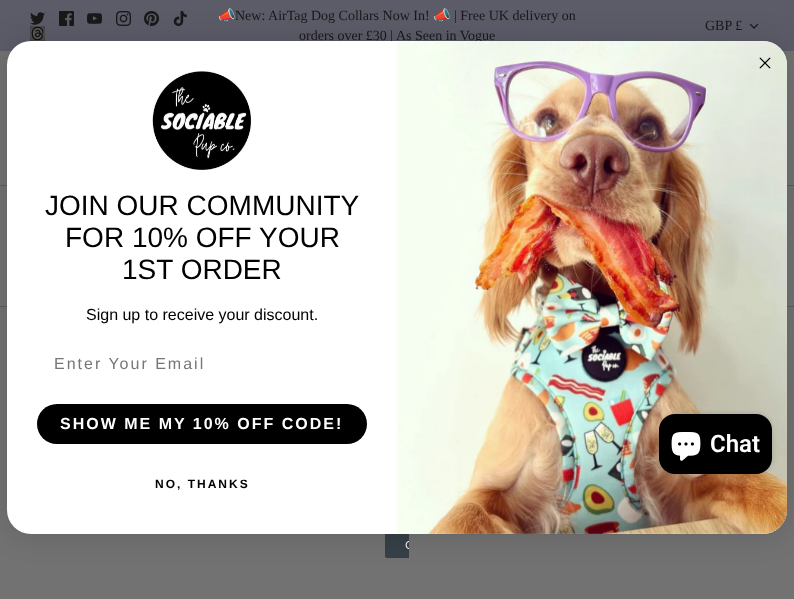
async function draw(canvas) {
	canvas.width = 794;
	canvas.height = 599;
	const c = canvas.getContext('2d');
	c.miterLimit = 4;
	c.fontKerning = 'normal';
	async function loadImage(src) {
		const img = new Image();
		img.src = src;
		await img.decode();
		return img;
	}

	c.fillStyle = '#727272';
	c.fillRect(0, 0, 794, 599);
	c.fillStyle = '#5b5c68';
	c.fillRect(0, 0, 794, 51);
	c.drawImage(await loadImage('img1.png'), 30, 12, 15, 13);
	c.drawImage(await loadImage('img2.png'), 59, 11, 15, 15);
	c.drawImage(await loadImage('img3.png'), 87, 13, 15, 11);
	c.drawImage(await loadImage('img4.png'), 116, 11, 15, 15);
	c.drawImage(await loadImage('img5.png'), 144, 11, 15, 15);
	c.drawImage(await loadImage('img6.png'), 173, 11, 14, 15);
	c.drawImage(await loadImage('img7.png'), 30, 26, 15, 15);
	c.font = '14px Noto Color Emoji';
	c.fillStyle = '#191919';
	c.fillText('📣', 218, 20);
	c.font = '14px Liberation Serif';
	c.fillText('New: AirTag Dog Collars Now In!', 235, 20);
	c.font = '14px Noto Color Emoji';
	c.fillText('📣', 433, 20);
	c.font = '14px Liberation Serif';
	for (const [text, x, y] of [
		['| Free UK delivery on', 454, 20],
		['orders over £30 | As Seen in Vogue', 299, 40],
		['GBP £', 705, 30],
	]) {
		c.fillText(text, x, y);
	}
	c.beginPath();
	c.moveTo(750.5, 24.5);
	c.lineTo(754, 28);
	c.lineTo(757.5, 24.5);
	c.strokeStyle = '#191919';
	c.lineWidth = 1.2;
	c.lineCap = 'round';
	c.lineJoin = 'round';
	c.stroke();
	c.fillStyle = '#5b5c68';
	c.fillRect(0, 185, 794, 1);
	c.fillRect(0, 306, 794, 1);
	c.drawImage(await loadImage('img11.png'), 385, 534, 24, 24);
	c.fillStyle = '#00000026';
	c.filter = 'blur(15px)';
	c.beginPath();
	c.roundRect(7, 41, 780, 493, 24);
	c.fill();
	c.filter = 'none';
	c.fillStyle = '#fff';
	c.beginPath();
	c.roundRect(7, 41, 780, 493, 24);
	c.fill();
	c.drawImage(await loadImage('img10.png'), 397, 41, 390, 493);
	c.drawImage(await loadImage('img8.png'), 759, 57, 12, 12);
	c.drawImage(await loadImage('img9.png'), 152, 71, 100, 99);
	c.font = '28px Liberation Sans';
	c.fillStyle = '#000';
	for (const [text, x, y] of [
		['JOIN OUR COMMUNITY', 45, 215],
		['FOR 10% OFF YOUR', 65, 247],
		['1ST ORDER', 122, 279],
	]) {
		c.fillText(text, x, y);
	}
	c.font = '16px Liberation Sans';
	c.fillText('Sign up to receive your discount.', 86, 320);
	c.letterSpacing = '2px';
	c.fillStyle = '#767676';
	c.fillText('Enter Your Email', 54, 369);
	c.fillStyle = '#000';
	c.beginPath();
	c.roundRect(37, 404, 330, 40, 20);
	c.fill();
	c.font = 'bold 16px Liberation Sans';
	c.fillStyle = '#fff';
	c.fillText('SHOW ME MY 10% OFF CODE!', 60, 429);
	c.font = 'bold 12px Liberation Sans';
	c.fillStyle = '#000';
	c.fillText('NO, THANKS', 155, 488);
	c.fillStyle = '#00000026';
	c.filter = 'blur(2.5px)';
	c.beginPath();
	c.roundRect(659, 414, 113, 60, 16);
	c.fill();
	c.filter = 'none';
	c.fillStyle = '#000';
	c.beginPath();
	c.roundRect(659, 414, 113, 60, 16);
	c.fill();
	c.drawImage(await loadImage('img12.png'), 671, 432, 30, 29);
	c.letterSpacing = '0px';
	c.font = '600 24px Roboto';
	c.fillStyle = '#fff';
	c.fillText('Chat', 710, 452);
}

draw(document.querySelector('canvas'));
